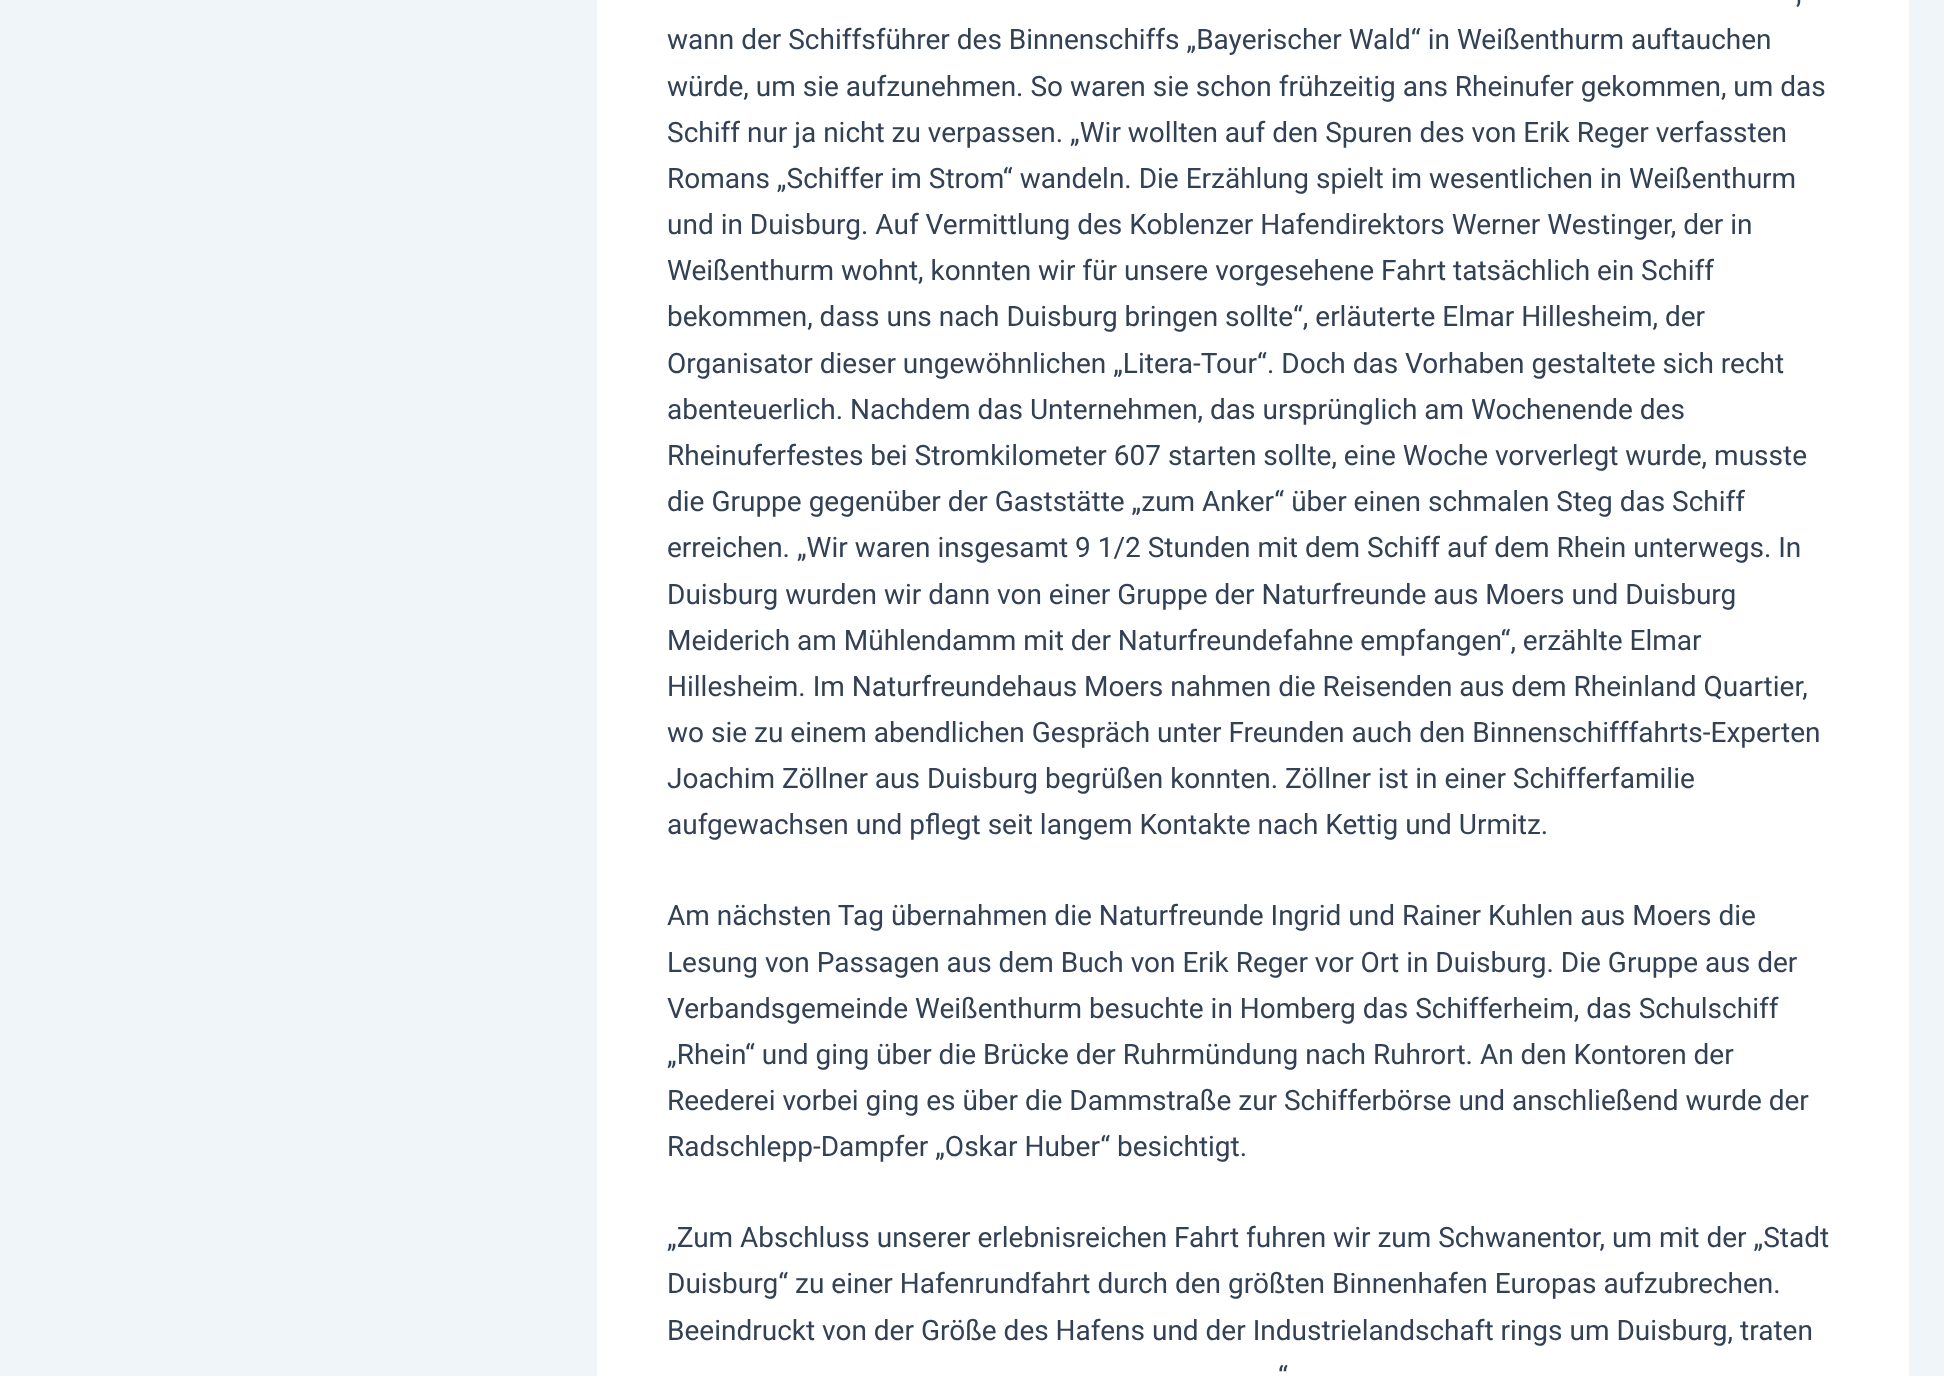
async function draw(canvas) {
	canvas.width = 1944;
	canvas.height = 1376;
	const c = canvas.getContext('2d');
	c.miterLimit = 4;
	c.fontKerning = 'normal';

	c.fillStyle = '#f0f5fa';
	c.fillRect(0, 0, 1944, 1376);
	c.fillStyle = '#fff';
	c.fillRect(597, 0, 1312, 1376);
	c.font = '28px Roboto';
	c.fillStyle = '#334155';
	for (const [text, x, y] of [
		[',', 1796, 3],
		['wann der Schiffsführer des Binnenschiffs „Bayerischer Wald“ in Weißenthurm auftauchen', 667, 49],
		['würde, um sie aufzunehmen. So waren sie schon frühzeitig ans Rheinufer gekommen, um das', 667, 96],
		['Schiff nur ja nicht zu verpassen. „Wir wollten auf den Spuren des von Erik Reger verfassten', 667, 142],
		['Romans „Schiffer im Strom“ wandeln. Die Erzählung spielt im wesentlichen in Weißenthurm', 667, 188],
		['und in Duisburg. Auf Vermittlung des Koblenzer Hafendirektors Werner Westinger, der in', 667, 234],
		['Weißenthurm wohnt, konnten wir für unsere vorgesehene Fahrt tatsächlich ein Schiff', 667, 280],
		['bekommen, dass uns nach Duisburg bringen sollte“, erläuterte Elmar Hillesheim, der', 667, 326],
		['Organisator dieser ungewöhnlichen „Litera-Tour“. Doch das Vorhaben gestaltete sich recht', 667, 373],
		['abenteuerlich. Nachdem das Unternehmen, das ursprünglich am Wochenende des', 667, 419],
		['Rheinuferfestes bei Stromkilometer 607 starten sollte, eine Woche vorverlegt wurde, musste', 667, 465],
		['die Gruppe gegenüber der Gaststätte „zum Anker“ über einen schmalen Steg das Schiff', 667, 511],
		['erreichen. „Wir waren insgesamt 9 1/2 Stunden mit dem Schiff auf dem Rhein unterwegs. In', 667, 557],
		['Duisburg wurden wir dann von einer Gruppe der Naturfreunde aus Moers und Duisburg', 667, 604],
		['Meiderich am Mühlendamm mit der Naturfreundefahne empfangen“, erzählte Elmar', 667, 650],
		['Hillesheim. Im Naturfreundehaus Moers nahmen die Reisenden aus dem Rheinland Quartier,', 667, 696],
		['wo sie zu einem abendlichen Gespräch unter Freunden auch den Binnenschifffahrts-Experten', 667, 742],
		['Joachim Zöllner aus Duisburg begrüßen konnten. Zöllner ist in einer Schifferfamilie', 667, 788],
		['aufgewachsen und pflegt seit langem Kontakte nach Kettig und Urmitz.', 667, 834],
		['Am nächsten Tag übernahmen die Naturfreunde Ingrid und Rainer Kuhlen aus Moers die', 667, 925],
		['Lesung von Passagen aus dem Buch von Erik Reger vor Ort in Duisburg. Die Gruppe aus der', 667, 972],
		['Verbandsgemeinde Weißenthurm besuchte in Homberg das Schifferheim, das Schulschiff', 667, 1018],
		['„Rhein“ und ging über die Brücke der Ruhrmündung nach Ruhrort. An den Kontoren der', 667, 1064],
		['Reederei vorbei ging es über die Dammstraße zur Schifferbörse und anschließend wurde der', 667, 1110],
		['Radschlepp-Dampfer „Oskar Huber“ besichtigt.', 667, 1156],
		['„Zum Abschluss unserer erlebnisreichen Fahrt fuhren wir zum Schwanentor, um mit der „Stadt', 667, 1247],
		['Duisburg“ zu einer Hafenrundfahrt durch den größten Binnenhafen Europas aufzubrechen.', 667, 1293],
		['Beeindruckt von der Größe des Hafens und der Industrielandschaft rings um Duisburg, traten', 667, 1340],
		['“', 1278, 1386],
	]) {
		c.fillText(text, x, y);
	}
}

draw(document.querySelector('canvas'));
